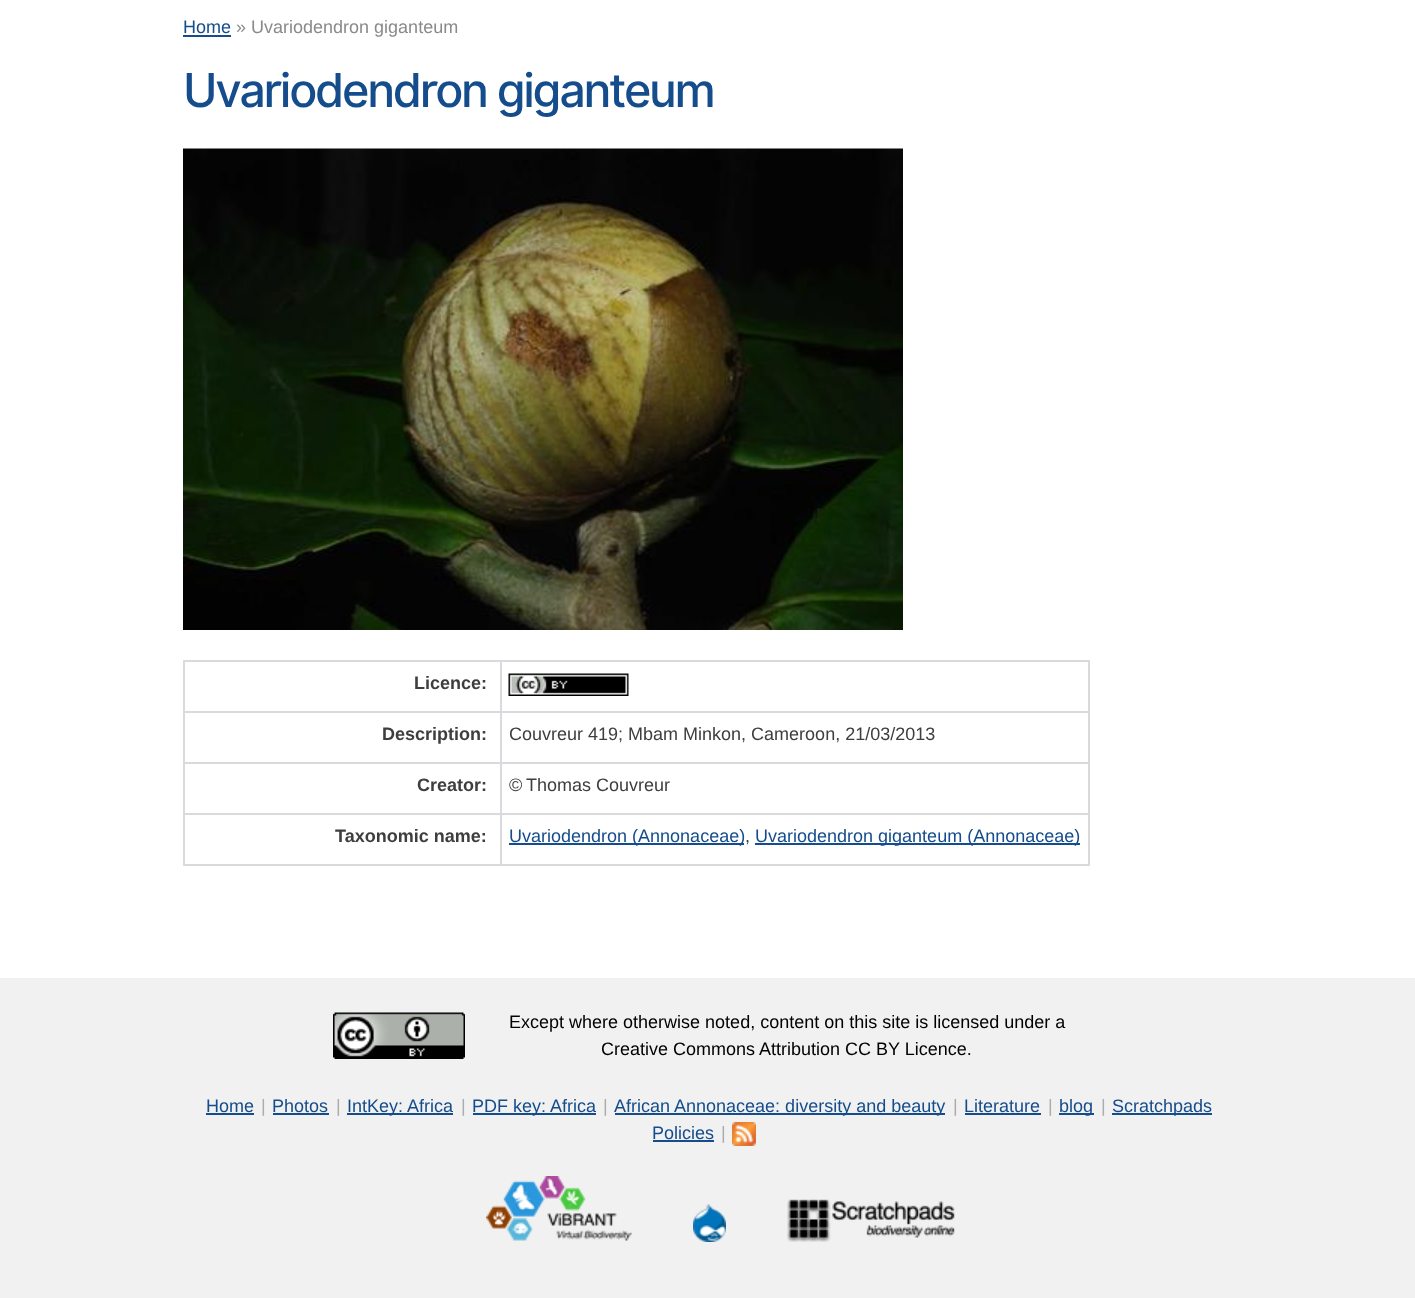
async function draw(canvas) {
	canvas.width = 1415;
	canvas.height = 1298;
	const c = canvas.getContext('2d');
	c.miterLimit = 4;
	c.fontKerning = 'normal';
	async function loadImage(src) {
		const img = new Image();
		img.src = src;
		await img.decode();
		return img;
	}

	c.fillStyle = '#fff';
	c.fillRect(0, 0, 1415, 1298);
	c.font = '18px Liberation Sans';
	c.fillStyle = '#154d8c';
	c.fillText('Home', 183, 33);
	c.fillRect(183, 35, 48, 2);
	c.fillStyle = '#898a8c';
	c.fillText('» Uvariodendron giganteum', 236, 33);
	c.letterSpacing = '-2.3px';
	c.font = '500 46.75px Inter';
	c.fillStyle = '#154d8c';
	c.fillText('Uvariodendron giganteum', 183, 107);
	c.drawImage(await loadImage('img1.png'), 183, 148, 720, 482);
	for (const [x, y, w, h, color] of [
		[183, 660, 906, 2, '#d9dadd'],
		[1088, 660, 2, 206, '#d9dadd'],
		[500, 864, 589, 2, '#d9dadd'],
		[500, 813, 2, 53, '#d9dadd'],
		[500, 813, 589, 2, '#d9dadd'],
		[500, 762, 2, 53, '#d9dadd'],
		[500, 762, 589, 2, '#d9dadd'],
		[500, 711, 2, 53, '#d9dadd'],
		[500, 711, 589, 2, '#d9dadd'],
		[500, 660, 2, 53, '#d9dadd'],
		[183, 864, 318, 2, '#d9dadd'],
		[183, 813, 2, 53, '#d9dadd'],
		[183, 813, 318, 2, '#d9dadd'],
		[183, 762, 2, 53, '#d9dadd'],
		[183, 762, 318, 2, '#d9dadd'],
		[183, 711, 2, 53, '#d9dadd'],
		[183, 711, 318, 2, '#d9dadd'],
		[183, 660, 2, 53, '#d9dadd'],
	]) {
		c.fillStyle = color;
		c.fillRect(x, y, w, h);
	}
	c.letterSpacing = '0px';
	c.font = 'bold 18px Liberation Sans';
	c.fillStyle = '#3e3e3e';
	c.fillText('Licence:', 414, 689);
	c.drawImage(await loadImage('img2.png'), 508, 673, 121, 23);
	c.fillText('Description:', 382, 740);
	c.font = '18px Liberation Sans';
	c.fillText('Couvreur 419; Mbam Minkon, Cameroon, 21/03/2013', 509, 740);
	c.font = 'bold 18px Liberation Sans';
	c.fillText('Creator:', 417, 791);
	c.font = '18px Liberation Sans';
	c.fillText('©', 509, 791);
	c.fillText('Thomas Couvreur', 526, 791);
	c.font = 'bold 18px Liberation Sans';
	c.fillText('Taxonomic name:', 335, 842);
	c.fillStyle = '#154d8c';
	c.fillRect(509, 843, 235, 2);
	c.font = '18px Liberation Sans';
	c.fillText('Uvariodendron (Annonaceae)', 509, 842);
	c.fillStyle = '#3e3e3e';
	c.fillText(',', 745, 842);
	c.fillStyle = '#154d8c';
	c.fillRect(755, 843, 325, 2);
	c.fillText('Uvariodendron giganteum (Annonaceae)', 755, 842);
	c.fillStyle = '#f1f1f1';
	c.fillRect(0, 978, 1415, 320);
	c.drawImage(await loadImage('img3.png'), 333, 1012, 132, 47);
	c.fillStyle = '#000';
	c.fillText('Except where otherwise noted, content on this site is licensed under a', 509, 1028);
	c.fillText('Creative Commons Attribution CC BY Licence.', 601, 1055);
	c.fillStyle = '#154d8c';
	c.fillText('Home', 206, 1112);
	c.fillRect(206, 1113, 48, 2);
	c.fillStyle = '#acacac';
	c.fillText('|', 261, 1112);
	c.fillStyle = '#154d8c';
	c.fillText('Photos', 272, 1112);
	c.fillRect(273, 1113, 56, 2);
	c.fillStyle = '#acacac';
	c.fillText('|', 336, 1112);
	c.fillStyle = '#154d8c';
	c.fillRect(347, 1113, 106, 2);
	c.fillText('IntKey: Africa', 347, 1112);
	c.fillStyle = '#acacac';
	c.fillText('|', 461, 1112);
	c.fillStyle = '#154d8c';
	c.fillRect(473, 1113, 123, 2);
	c.fillText('PDF key: Africa', 472, 1112);
	c.fillStyle = '#acacac';
	c.fillText('|', 603, 1112);
	c.fillStyle = '#154d8c';
	c.fillRect(615, 1113, 330, 2);
	c.fillText('African Annonaceae: diversity and beauty', 614, 1112);
	c.fillStyle = '#acacac';
	c.fillText('|', 953, 1112);
	c.fillStyle = '#154d8c';
	c.fillText('Literature', 964, 1112);
	c.fillRect(965, 1113, 76, 2);
	c.fillStyle = '#acacac';
	c.fillText('|', 1048, 1112);
	c.fillStyle = '#154d8c';
	c.fillRect(1059, 1113, 35, 2);
	c.fillText('blog', 1059, 1112);
	c.fillStyle = '#acacac';
	c.fillText('|', 1101, 1112);
	c.fillStyle = '#154d8c';
	c.fillRect(1112, 1113, 100, 2);
	c.fillText('Scratchpads', 1112, 1112);
	c.fillText('Policies', 652, 1139);
	c.fillRect(653, 1140, 61, 2);
	c.fillStyle = '#acacac';
	c.fillText('|', 721, 1139);
	c.drawImage(await loadImage('img4.png'), 732, 1122, 24, 24);
	c.drawImage(await loadImage('img5.png'), 486, 1176, 146, 65);
	c.drawImage(await loadImage('img6.png'), 693, 1204, 33, 38);
	c.drawImage(await loadImage('img7.png'), 787, 1199, 168, 43);
}

draw(document.querySelector('canvas'));
